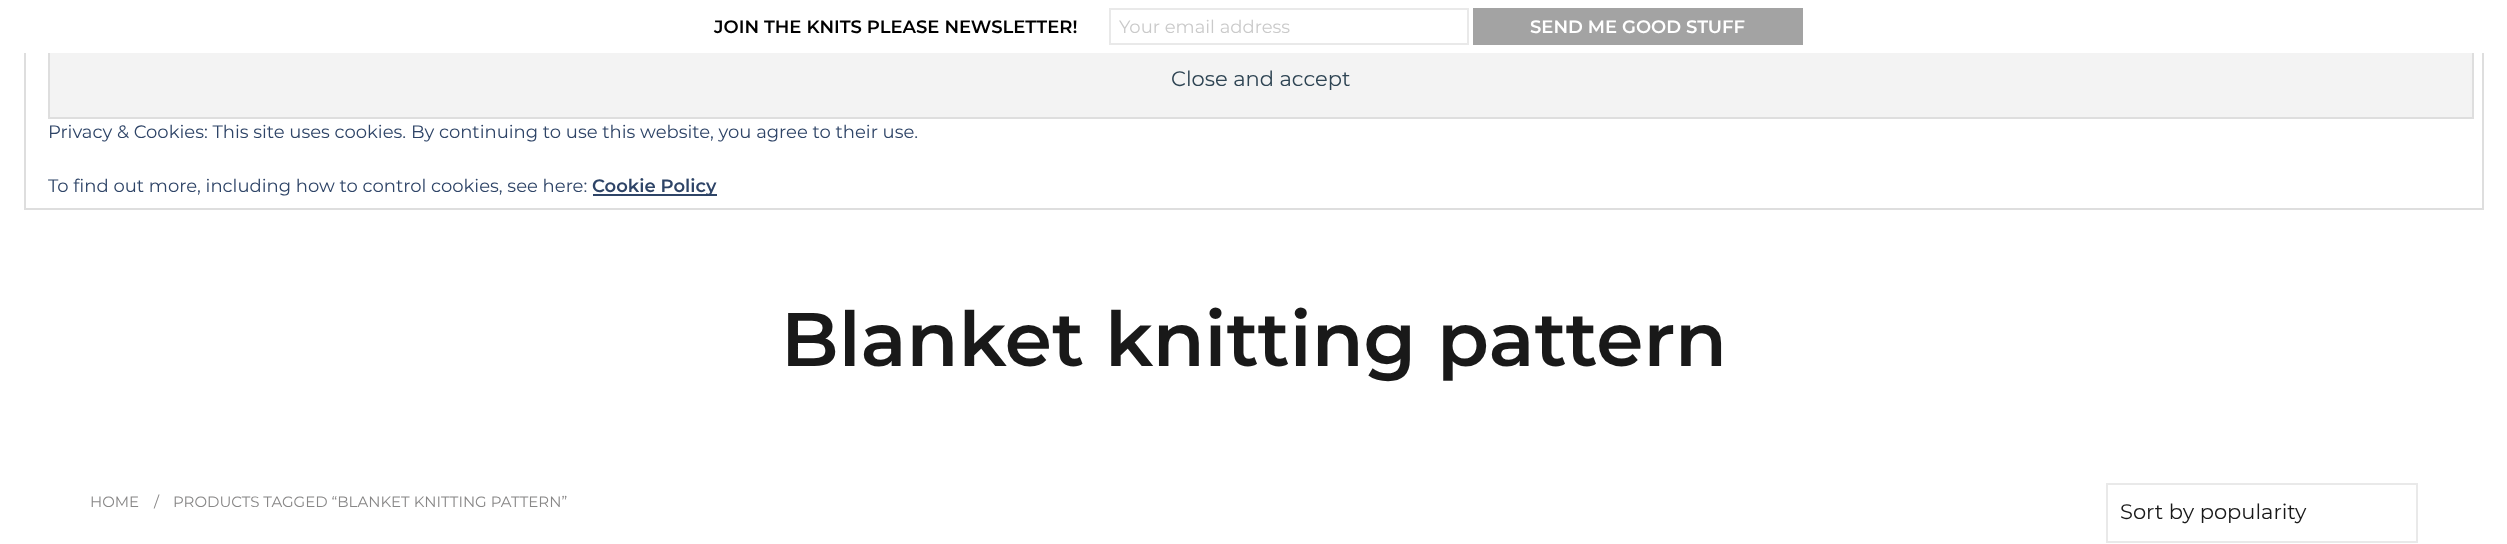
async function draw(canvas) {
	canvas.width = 2507;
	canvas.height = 544;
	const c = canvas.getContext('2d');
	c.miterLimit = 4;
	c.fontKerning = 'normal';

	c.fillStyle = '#fff';
	c.fillRect(0, 0, 2507, 544);
	c.strokeStyle = '#dedede';
	c.lineWidth = 2;
	c.strokeRect(25, 25, 2458, 184);
	c.fillStyle = '#f3f3f3';
	c.fillRect(50, 53, 2422, 64);
	c.strokeRect(49, 36, 2424, 82);
	c.fillStyle = '#fff';
	c.fillRect(24, 24, 2460, 29);
	c.font = '600 18px Montserrat';
	c.fillStyle = '#000';
	c.fillText('JOIN THE KNITS PLEASE NEWSLETTER!', 714, 33);
	c.strokeStyle = '#e9e9e9';
	c.strokeRect(1110, 9, 358, 35);
	c.font = '18px Montserrat';
	c.fillStyle = '#cacaca';
	c.fillText('Your email address', 1119, 33);
	c.fillStyle = '#a3a3a3';
	c.fillRect(1473, 8, 330, 37);
	c.font = '600 18px Montserrat';
	c.fillStyle = '#fff';
	c.fillText('SEND ME GOOD STUFF', 1530, 33);
	c.font = '21px Montserrat';
	c.fillStyle = '#2e4453';
	c.fillText('Close and accept', 1171, 86);
	c.font = '18px Montserrat';
	c.fillStyle = '#2e4467';
	c.fillText('Privacy & Cookies: This site uses cookies. By continuing to use this website, you agree to their use.', 48, 138);
	c.fillText('To find out more, including how to control cookies, see here:', 48, 192);
	c.fillRect(593, 194, 124, 2);
	c.font = '600 18px Montserrat';
	c.fillText('Cookie Policy', 592, 192);
	c.font = '600 75.75px Montserrat';
	c.fillStyle = '#191919';
	c.fillText('Blanket knitting pattern', 781, 366);
	c.font = '15px Montserrat';
	c.fillStyle = '#888787';
	for (const [text, x, y] of [
		['HOME', 90, 507],
		['/', 154, 507],
		['PRODUCTS TAGGED “BLANKET KNITTING PATTERN”', 173, 507],
	]) {
		c.fillText(text, x, y);
	}
	c.strokeRect(2107, 484, 310, 58);
	c.font = '21px Montserrat';
	c.fillStyle = '#191919';
	c.fillText('Sort by popularity', 2120, 519);
}

draw(document.querySelector('canvas'));
